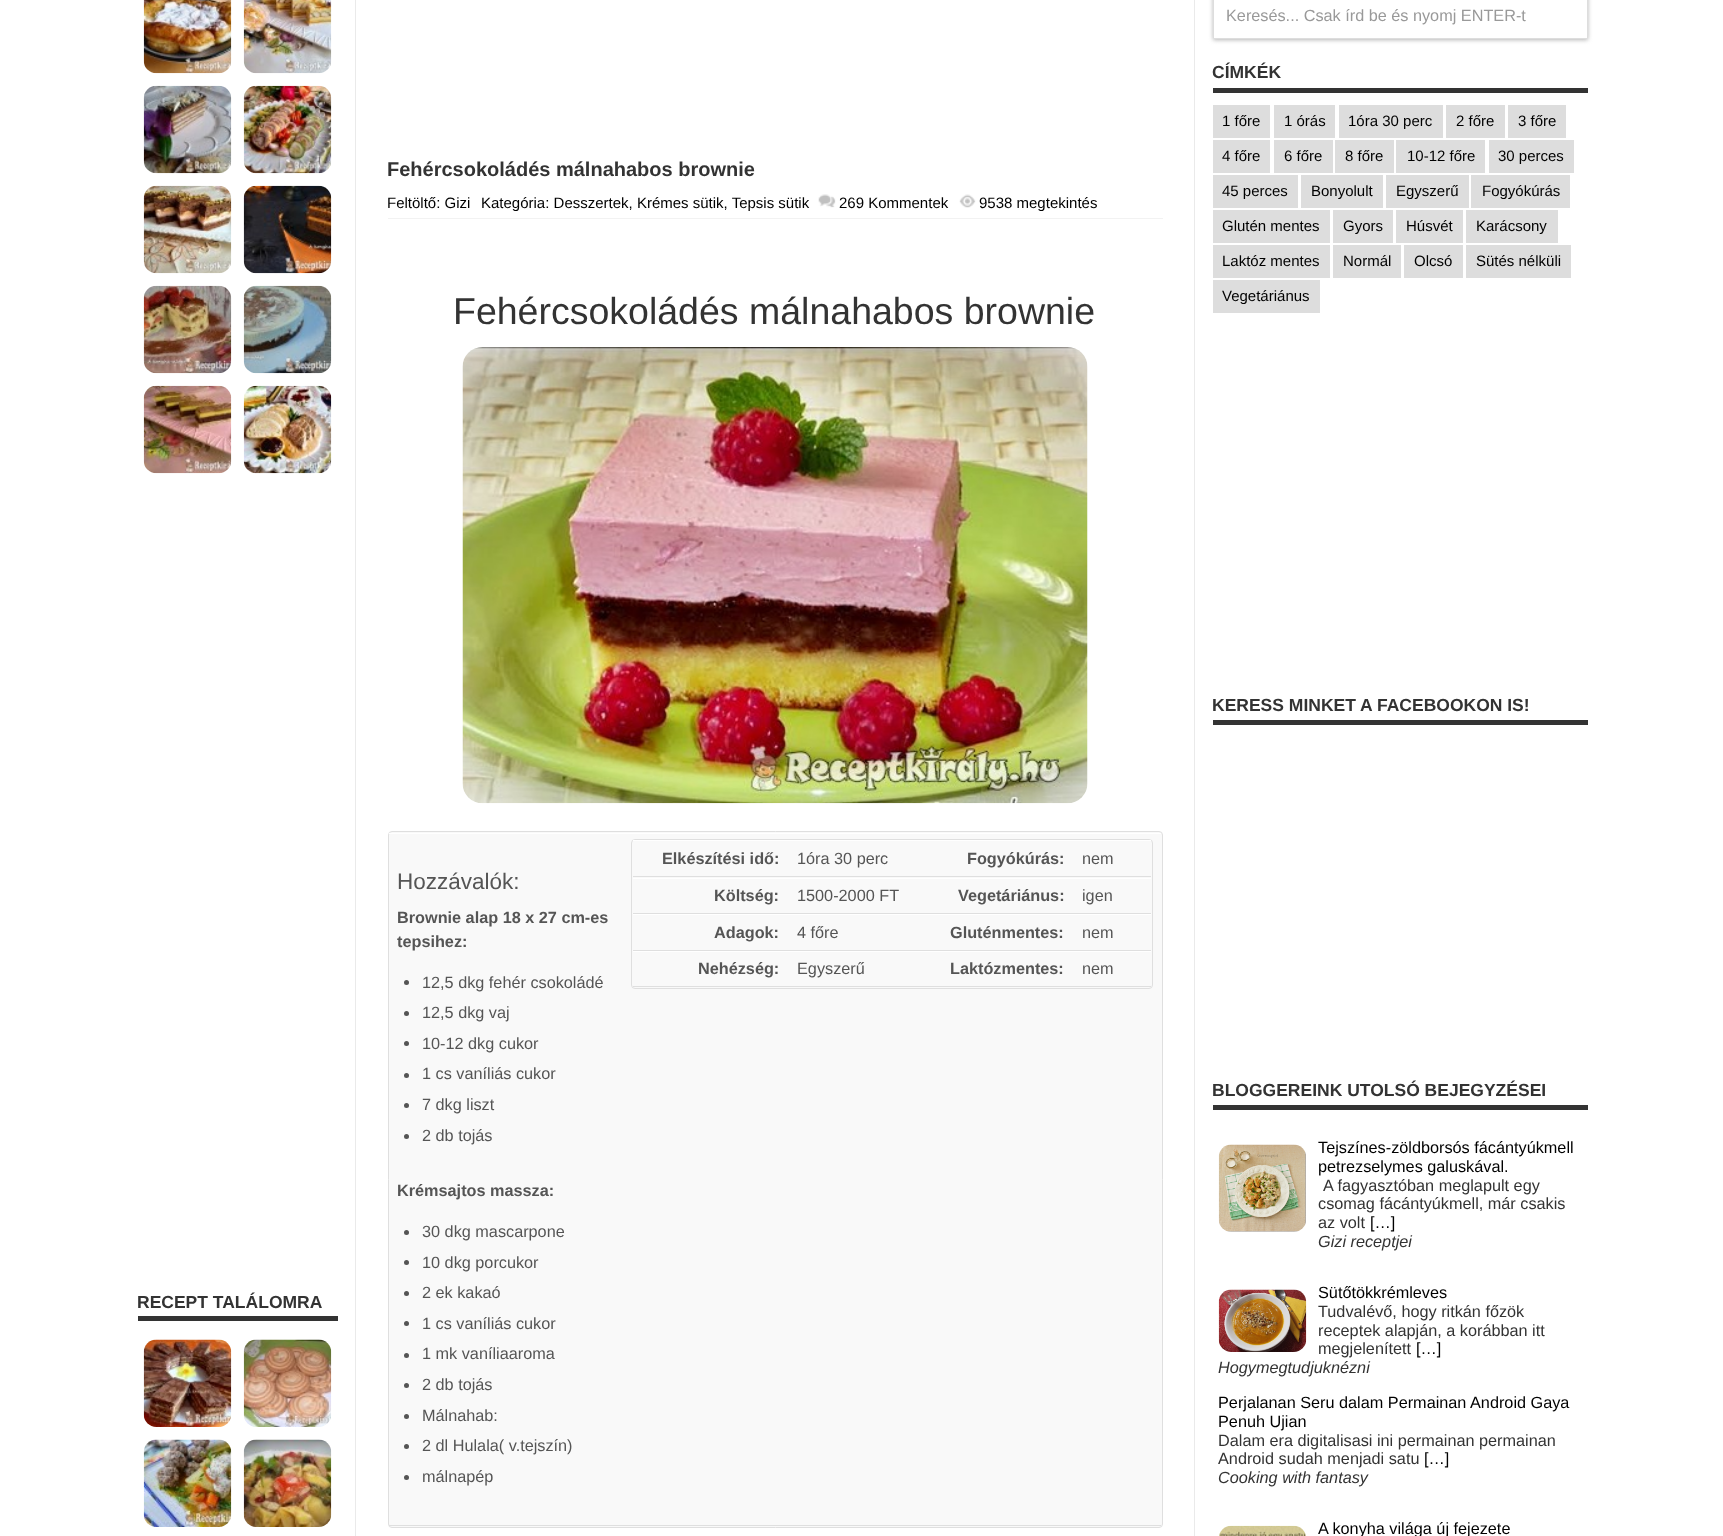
async function draw(canvas) {
	canvas.width = 1723;
	canvas.height = 1536;
	const c = canvas.getContext('2d');
	c.miterLimit = 4;
	c.fontKerning = 'normal';
	async function loadImage(src) {
		const img = new Image();
		img.src = src;
		await img.decode();
		return img;
	}

	c.fillStyle = '#fff';
	c.fillRect(0, 0, 1723, 1536);
	c.fillStyle = '#eaeaea';
	c.fillRect(355, 0, 1, 1536);
	c.drawImage(await loadImage('img1.png'), 143, 0, 89, 74);
	c.drawImage(await loadImage('img2.png'), 243, 0, 89, 74);
	c.drawImage(await loadImage('img3.png'), 143, 85, 89, 89);
	c.drawImage(await loadImage('img4.png'), 243, 85, 89, 89);
	c.drawImage(await loadImage('img5.png'), 143, 185, 89, 89);
	c.drawImage(await loadImage('img6.png'), 243, 185, 89, 89);
	c.drawImage(await loadImage('img7.png'), 143, 285, 89, 89);
	c.drawImage(await loadImage('img8.png'), 243, 285, 89, 89);
	c.drawImage(await loadImage('img9.png'), 143, 385, 89, 89);
	c.drawImage(await loadImage('img10.png'), 243, 385, 89, 89);
	c.fillStyle = '#333';
	c.fillRect(138, 1316, 200, 5);
	c.font = 'bold 17.5px Liberation Sans';
	c.fillText('RECEPT TALÁLOMRA', 137, 1308);
	c.drawImage(await loadImage('img11.png'), 143, 1339, 89, 88);
	c.drawImage(await loadImage('img12.png'), 243, 1339, 89, 88);
	c.drawImage(await loadImage('img13.png'), 143, 1439, 89, 88);
	c.drawImage(await loadImage('img14.png'), 243, 1439, 89, 88);
	c.font = 'bold 20px Liberation Sans';
	c.fillText('Fehércsokoládés málnahabos brownie', 387, 176);
	c.fillStyle = '#f2f2f2';
	c.fillRect(388, 218, 775, 1);
	c.font = '15px Liberation Sans';
	c.fillStyle = '#000';
	c.fillText('Feltöltő: Gizi', 387, 208);
	c.fillText('Kategória: Desszertek, Krémes sütik, Tepsis sütik', 481, 208);
	c.drawImage(await loadImage('img15.png'), 818, 194, 18, 14);
	c.fillText('269 Kommentek', 839, 208);
	c.drawImage(await loadImage('img16.png'), 959, 194, 17, 14);
	c.fillText('9538 megtekintés', 979, 208);
	c.font = '37.5px Liberation Sans';
	c.fillStyle = '#333';
	c.fillText('Fehércsokoládés málnahabos brownie', 453, 324);
	c.drawImage(await loadImage('img17.png'), 462, 347, 626, 457);
	c.fillStyle = '#f9f9f9';
	c.beginPath();
	c.roundRect(388.5, 831.5, 774, 696, 3.5);
	c.fill();
	c.strokeStyle = '#dfdfdf';
	c.stroke();
	c.fillStyle = '#fff';
	c.fillRect(389, 833, 772, 1);
	c.fillStyle = '#dfdfdf';
	c.fillRect(389, 1525, 772, 1);
	c.font = '22.5px Liberation Sans';
	c.fillStyle = '#555';
	c.fillText('Hozzávalók:', 397, 889);
	c.font = 'bold 16.25px Liberation Sans';
	c.fillText('Brownie alap 18 x 27 cm-es', 397, 923);
	c.fillText('tepsihez:', 397, 947);
	c.beginPath();
	c.arc(406.5, 982.5, 2.5, 0, 2 * Math.PI);
	c.fill();
	c.font = '16.25px Liberation Sans';
	c.fillText('12,5 dkg fehér csokoládé', 422, 988);
	c.beginPath();
	c.arc(406.5, 1013.5, 2.5, 0, 2 * Math.PI);
	c.fill();
	c.fillText('12,5 dkg vaj', 422, 1018);
	c.beginPath();
	c.arc(406.5, 1043.5, 2.5, 0, 2 * Math.PI);
	c.fill();
	c.fillText('10-12 dkg cukor', 422, 1049);
	c.beginPath();
	c.arc(406.5, 1075.5, 2.5, 0, 2 * Math.PI);
	c.fill();
	c.fillText('1 cs vaníliás cukor', 422, 1079);
	c.beginPath();
	c.arc(406.5, 1105.5, 2.5, 0, 2 * Math.PI);
	c.fill();
	c.fillText('7 dkg liszt', 422, 1110);
	c.beginPath();
	c.arc(406.5, 1136.5, 2.5, 0, 2 * Math.PI);
	c.fill();
	c.fillText('2 db tojás', 422, 1141);
	c.font = 'bold 16.25px Liberation Sans';
	c.fillText('Krémsajtos massza:', 397, 1196);
	c.beginPath();
	c.arc(406.5, 1232.5, 2.5, 0, 2 * Math.PI);
	c.fill();
	c.font = '16.25px Liberation Sans';
	c.fillText('30 dkg mascarpone', 422, 1237);
	c.beginPath();
	c.arc(406.5, 1262.5, 2.5, 0, 2 * Math.PI);
	c.fill();
	c.fillText('10 dkg porcukor', 422, 1268);
	c.beginPath();
	c.arc(406.5, 1293.5, 2.5, 0, 2 * Math.PI);
	c.fill();
	c.fillText('2 ek kakaó', 422, 1298);
	c.beginPath();
	c.arc(406.5, 1323.5, 2.5, 0, 2 * Math.PI);
	c.fill();
	c.fillText('1 cs vaníliás cukor', 422, 1329);
	c.beginPath();
	c.arc(406.5, 1355.5, 2.5, 0, 2 * Math.PI);
	c.fill();
	c.fillText('1 mk vaníliaaroma', 422, 1359);
	c.beginPath();
	c.arc(406.5, 1385.5, 2.5, 0, 2 * Math.PI);
	c.fill();
	c.fillText('2 db tojás', 422, 1390);
	c.beginPath();
	c.arc(406.5, 1416.5, 2.5, 0, 2 * Math.PI);
	c.fill();
	c.fillText('Málnahab:', 422, 1421);
	c.beginPath();
	c.arc(406.5, 1446.5, 2.5, 0, 2 * Math.PI);
	c.fill();
	c.fillText('2 dl Hulala( v.tejszín)', 422, 1451);
	c.beginPath();
	c.arc(406.5, 1477.5, 2.5, 0, 2 * Math.PI);
	c.fill();
	c.fillText('málnapép', 422, 1482);
	c.beginPath();
	c.roundRect(631.5, 839.5, 521, 149, 3.5);
	c.stroke();
	c.fillStyle = '#fff';
	c.fillRect(633, 840, 518, 1);
	c.fillStyle = '#dfdfdf';
	c.fillRect(633, 876, 518, 1);
	c.font = 'bold 16.25px Liberation Sans';
	c.fillStyle = '#555';
	c.fillText('Elkészítési idő:', 662, 864);
	c.font = '16.25px Liberation Sans';
	c.fillText('1óra 30 perc', 797, 864);
	c.font = 'bold 16.25px Liberation Sans';
	c.fillText('Fogyókúrás:', 967, 864);
	c.font = '16.25px Liberation Sans';
	c.fillText('nem', 1082, 864);
	c.fillStyle = '#fff';
	c.fillRect(633, 878, 518, 1);
	c.fillStyle = '#dfdfdf';
	c.fillRect(633, 913, 518, 1);
	c.font = 'bold 16.25px Liberation Sans';
	c.fillStyle = '#555';
	c.fillText('Költség:', 714, 901);
	c.font = '16.25px Liberation Sans';
	c.fillText('1500-2000 FT', 797, 901);
	c.font = 'bold 16.25px Liberation Sans';
	c.fillText('Vegetáriánus:', 958, 901);
	c.font = '16.25px Liberation Sans';
	c.fillText('igen', 1082, 901);
	c.fillStyle = '#fff';
	c.fillRect(633, 914, 518, 1);
	c.fillStyle = '#dfdfdf';
	c.fillRect(633, 950, 518, 1);
	c.font = 'bold 16.25px Liberation Sans';
	c.fillStyle = '#555';
	c.fillText('Adagok:', 714, 938);
	c.font = '16.25px Liberation Sans';
	c.fillText('4 főre', 797, 938);
	c.font = 'bold 16.25px Liberation Sans';
	c.fillText('Gluténmentes:', 950, 938);
	c.font = '16.25px Liberation Sans';
	c.fillText('nem', 1082, 938);
	c.fillStyle = '#fff';
	c.fillRect(633, 951, 518, 1);
	c.fillStyle = '#dfdfdf';
	c.fillRect(633, 986, 518, 1);
	c.font = 'bold 16.25px Liberation Sans';
	c.fillStyle = '#555';
	c.fillText('Nehézség:', 698, 974);
	c.font = '16.25px Liberation Sans';
	c.fillText('Egyszerű', 797, 974);
	c.font = 'bold 16.25px Liberation Sans';
	c.fillText('Laktózmentes:', 950, 974);
	c.font = '16.25px Liberation Sans';
	c.fillText('nem', 1082, 974);
	c.fillStyle = '#eaeaea';
	c.fillRect(1194, 0, 1, 1536);
	c.fillStyle = '#b5b5b5';
	c.filter = 'blur(2px)';
	c.beginPath();
	c.roundRect(1213, -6, 375, 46, 1);
	c.fill();
	c.filter = 'none';
	c.fillStyle = '#fff';
	c.beginPath();
	c.roundRect(1213.5, -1.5, 374, 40, 0.5);
	c.fill();
	c.strokeStyle = '#ddd';
	c.stroke();
	c.fillStyle = '#999';
	c.fillText('Keresés... Csak írd be és nyomj ENTER-t', 1226, 21);
	c.fillStyle = '#333';
	c.fillRect(1213, 88, 375, 5);
	c.font = 'bold 17.5px Liberation Sans';
	c.fillText('CÍMKÉK', 1212, 78);
	c.fillStyle = '#ddd';
	c.fillRect(1213, 105, 57, 33);
	c.font = '15px Liberation Sans';
	c.fillStyle = '#000';
	c.fillText('1 főre', 1222, 126);
	c.fillStyle = '#ddd';
	c.fillRect(1274, 105, 61, 33);
	c.fillStyle = '#000';
	c.fillText('1 órás', 1284, 126);
	c.fillStyle = '#ddd';
	c.fillRect(1339, 105, 104, 33);
	c.fillStyle = '#000';
	c.fillText('1óra 30 perc', 1348, 126);
	c.fillStyle = '#ddd';
	c.fillRect(1446, 105, 59, 33);
	c.fillStyle = '#000';
	c.fillText('2 főre', 1456, 126);
	c.fillStyle = '#ddd';
	c.fillRect(1508, 105, 58, 33);
	c.fillStyle = '#000';
	c.fillText('3 főre', 1518, 126);
	c.fillStyle = '#ddd';
	c.fillRect(1213, 140, 57, 33);
	c.fillStyle = '#000';
	c.fillText('4 főre', 1222, 161);
	c.fillStyle = '#ddd';
	c.fillRect(1274, 140, 59, 33);
	c.fillStyle = '#000';
	c.fillText('6 főre', 1284, 161);
	c.fillStyle = '#ddd';
	c.fillRect(1335, 140, 59, 33);
	c.fillStyle = '#000';
	c.fillText('8 főre', 1345, 161);
	c.fillStyle = '#ddd';
	c.fillRect(1396, 140, 89, 33);
	c.fillStyle = '#000';
	c.fillText('10-12 főre', 1407, 161);
	c.fillStyle = '#ddd';
	c.fillRect(1489, 140, 85, 33);
	c.fillStyle = '#000';
	c.fillText('30 perces', 1498, 161);
	c.fillStyle = '#ddd';
	c.fillRect(1213, 175, 85, 33);
	c.fillStyle = '#000';
	c.fillText('45 perces', 1222, 196);
	c.fillStyle = '#ddd';
	c.fillRect(1301, 175, 82, 33);
	c.fillStyle = '#000';
	c.fillText('Bonyolult', 1311, 196);
	c.fillStyle = '#ddd';
	c.fillRect(1386, 175, 83, 33);
	c.fillStyle = '#000';
	c.fillText('Egyszerű', 1396, 196);
	c.fillStyle = '#ddd';
	c.fillRect(1471, 175, 99, 33);
	c.fillStyle = '#000';
	c.fillText('Fogyókúrás', 1482, 196);
	c.fillStyle = '#ddd';
	c.fillRect(1213, 210, 117, 33);
	c.fillStyle = '#000';
	c.fillText('Glutén mentes', 1222, 231);
	c.fillStyle = '#ddd';
	c.fillRect(1333, 210, 60, 33);
	c.fillStyle = '#000';
	c.fillText('Gyors', 1343, 231);
	c.fillStyle = '#ddd';
	c.fillRect(1396, 210, 67, 33);
	c.fillStyle = '#000';
	c.fillText('Húsvét', 1406, 231);
	c.fillStyle = '#ddd';
	c.fillRect(1466, 210, 92, 33);
	c.fillStyle = '#000';
	c.fillText('Karácsony', 1476, 231);
	c.fillStyle = '#ddd';
	c.fillRect(1213, 245, 117, 33);
	c.fillStyle = '#000';
	c.fillText('Laktóz mentes', 1222, 266);
	c.fillStyle = '#ddd';
	c.fillRect(1333, 245, 68, 33);
	c.fillStyle = '#000';
	c.fillText('Normál', 1343, 266);
	c.fillStyle = '#ddd';
	c.fillRect(1404, 245, 59, 33);
	c.fillStyle = '#000';
	c.fillText('Olcsó', 1414, 266);
	c.fillStyle = '#ddd';
	c.fillRect(1466, 245, 105, 33);
	c.fillStyle = '#000';
	c.fillText('Sütés nélküli', 1476, 266);
	c.fillStyle = '#ddd';
	c.fillRect(1213, 280, 107, 33);
	c.fillStyle = '#000';
	c.fillText('Vegetáriánus', 1222, 301);
	c.fillStyle = '#333';
	c.fillRect(1213, 720, 375, 5);
	c.font = 'bold 17.5px Liberation Sans';
	c.fillText('KERESS MINKET A FACEBOOKON IS!', 1212, 711);
	c.fillRect(1213, 1105, 375, 5);
	c.fillText('BLOGGEREINK UTOLSÓ BEJEGYZÉSEI', 1212, 1096);
	c.drawImage(await loadImage('img18.png'), 1218, 1144, 88, 88);
	c.font = '16.25px Liberation Sans';
	c.fillStyle = '#000';
	c.fillText('Tejszínes-zöldborsós fácántyúkmell', 1318, 1153);
	c.fillText('petrezselymes galuskával.', 1318, 1172);
	c.fillStyle = '#333';
	for (const [text, x, y] of [
		['A fagyasztóban meglapult egy', 1323, 1191],
		['csomag fácántyúkmell, már csakis', 1318, 1209],
		['az volt', 1318, 1228],
	]) {
		c.fillText(text, x, y);
	}
	c.fillStyle = '#000';
	c.fillText('[…]', 1370, 1228);
	c.font = 'italic 16.25px Liberation Sans';
	c.fillStyle = '#333';
	c.fillText('Gizi receptjei', 1318, 1247);
	c.drawImage(await loadImage('img19.png'), 1218, 1289, 89, 63);
	c.font = '16.25px Liberation Sans';
	c.fillStyle = '#000';
	c.fillText('Sütőtökkrémleves', 1318, 1298);
	c.fillStyle = '#333';
	for (const [text, x, y] of [
		['Tudvalévő, hogy ritkán főzök', 1318, 1317],
		['receptek alapján, a korábban itt', 1318, 1336],
		['megjelenített', 1318, 1354],
	]) {
		c.fillText(text, x, y);
	}
	c.fillStyle = '#000';
	c.fillText('[…]', 1416, 1354);
	c.font = 'italic 16.25px Liberation Sans';
	c.fillStyle = '#333';
	c.fillText('Hogymegtudjuknézni', 1218, 1373);
	c.font = '16.25px Liberation Sans';
	c.fillStyle = '#000';
	c.fillText('Perjalanan Seru dalam Permainan Android Gaya', 1218, 1408);
	c.fillText('Penuh Ujian', 1218, 1427);
	c.fillStyle = '#333';
	c.fillText('Dalam era digitalisasi ini permainan permainan', 1218, 1446);
	c.fillText('Android sudah menjadi satu', 1218, 1464);
	c.fillStyle = '#000';
	c.fillText('[…]', 1424, 1464);
	c.font = 'italic 16.25px Liberation Sans';
	c.fillStyle = '#333';
	c.fillText('Cooking with fantasy', 1218, 1483);
	c.drawImage(await loadImage('img20.png'), 1219, 1525, 87, 11);
	c.font = '16.25px Liberation Sans';
	c.fillStyle = '#000';
	c.fillText('A konyha világa új fejezete', 1318, 1534);
}

draw(document.querySelector('canvas'));
